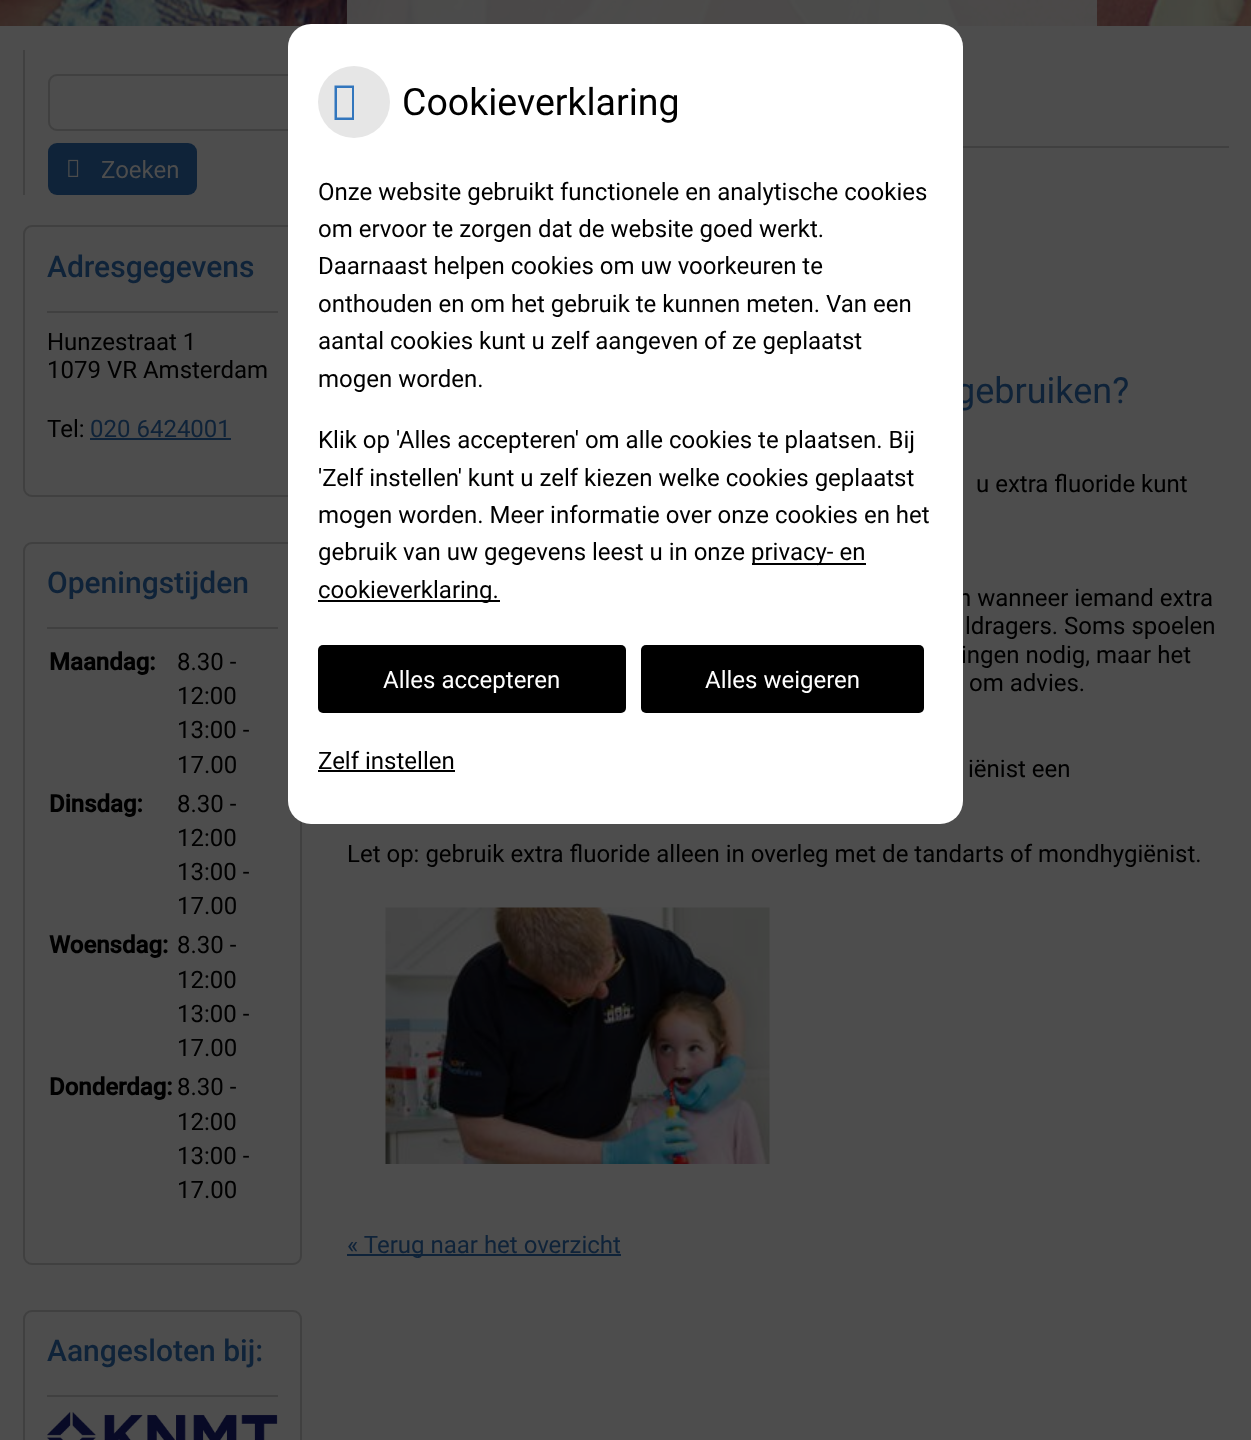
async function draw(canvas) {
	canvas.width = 1251;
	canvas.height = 1440;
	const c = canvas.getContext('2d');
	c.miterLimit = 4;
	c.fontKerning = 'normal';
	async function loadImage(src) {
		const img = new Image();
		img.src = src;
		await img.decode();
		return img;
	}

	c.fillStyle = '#4d4d4d';
	c.fillRect(0, 0, 1251, 1440);
	c.drawImage(await loadImage('img1.png'), 0, 0, 1251, 26);
	c.fillStyle = '#4d4d4de6';
	c.fillRect(347, 0, 750, 26);
	c.beginPath();
	c.roundRect(49, 75, 252, 55, 8);
	c.strokeStyle = '#404040';
	c.lineWidth = 2;
	c.stroke();
	c.beginPath();
	c.roundRect(24, 226, 277, 270, 8);
	c.stroke();
	c.beginPath();
	c.roundRect(24, 543, 277, 721, 8);
	c.stroke();
	c.font = '36px Roboto';
	c.fillStyle = '#0f2339';
	c.fillText('gebruiken?', 955, 403);
	c.font = '24px Roboto';
	c.fillStyle = '#000';
	c.fillText('n wanneer iemand extra', 958, 606);
	c.fillText('ingen nodig, maar het', 961, 663);
	c.fillStyle = '#fff';
	c.beginPath();
	c.roundRect(288, 24, 675, 800, 23);
	c.fill();
	c.fillStyle = '#e6e6e6';
	c.beginPath();
	c.arc(354, 102, 36, 0, 2 * Math.PI);
	c.fill();
	c.fillStyle = '#3276bd';
	c.beginPath();
	c.moveTo(334.5, 120);
	c.lineTo(334.5, 85.5);
	c.lineTo(354, 85.5);
	c.lineTo(354, 120);
	c.closePath();
	c.moveTo(337, 117.5);
	c.lineTo(352, 117.5);
	c.lineTo(352, 88);
	c.lineTo(337, 88);
	c.closePath();
	c.fill();
	c.font = '37.5px Roboto';
	c.fillStyle = '#000';
	c.fillText('Cookieverklaring', 402, 115);
	c.font = '24px Roboto';
	for (const [text, x, y] of [
		['Onze website gebruikt functionele en analytische cookies', 318, 200],
		['om ervoor te zorgen dat de website goed werkt.', 318, 237],
		['Daarnaast helpen cookies om uw voorkeuren te', 318, 274],
		['onthouden en om het gebruik te kunnen meten. Van een', 318, 312],
		['aantal cookies kunt u zelf aangeven of ze geplaatst', 318, 349],
		['mogen worden.', 318, 387],
		['Klik op \'Alles accepteren\' om alle cookies te plaatsen. Bij', 318, 448],
		['\'Zelf instellen\' kunt u zelf kiezen welke cookies geplaatst', 318, 486],
		['mogen worden. Meer informatie over onze cookies en het', 318, 523],
		['gebruik van uw gegevens leest u in onze', 318, 560],
	]) {
		c.fillText(text, x, y);
	}
	c.fillRect(752, 563, 114, 2);
	c.fillText('privacy- en', 751, 560);
	c.fillRect(318, 600, 182, 2);
	c.fillText('cookieverklaring.', 318, 598);
	c.beginPath();
	c.roundRect(318, 645, 308, 68, 5);
	c.fill();
	c.fillStyle = '#fff';
	c.fillText('Alles accepteren', 383, 688);
	c.fillStyle = '#000';
	c.beginPath();
	c.roundRect(641, 645, 283, 68, 5);
	c.fill();
	c.fillStyle = '#fff';
	c.fillText('Alles weigeren', 705, 688);
	c.fillStyle = '#000';
	c.fillText('Zelf instellen', 318, 769);
	c.fillRect(318, 770, 137, 2);
	c.fillStyle = '#404040';
	c.fillRect(23, 50, 2, 145);
	c.fillStyle = '#0f2339';
	c.beginPath();
	c.roundRect(48, 143, 149, 52, 9);
	c.fill();
	c.drawImage(await loadImage('img2.png'), 68, 159, 11, 18);
	c.fillStyle = '#4d4d4d';
	c.fillText('Zoeken', 101, 178);
	c.fillStyle = '#404040';
	c.fillRect(47, 311, 231, 2);
	c.font = '500 30px Roboto';
	c.fillStyle = '#0f2339';
	c.fillText('Adresgegevens', 47, 277);
	c.font = '24px Roboto';
	c.fillStyle = '#000';
	for (const [text, x, y] of [
		['Hunzestraat 1', 47, 350],
		['1079 VR Amsterdam', 47, 378],
		['Tel:', 47, 437],
	]) {
		c.fillText(text, x, y);
	}
	c.fillStyle = '#0f2339';
	c.fillText('020 6424001', 90, 437);
	c.fillRect(90, 438, 141, 2);
	c.fillStyle = '#404040';
	c.fillRect(47, 627, 231, 2);
	c.font = '500 30px Roboto';
	c.fillStyle = '#0f2339';
	c.fillText('Openingstijden', 47, 593);
	c.font = 'bold 24px Roboto';
	c.fillStyle = '#000';
	c.fillText('Maandag:', 49, 670);
	c.font = '24px Roboto';
	for (const [text, x, y] of [
		['8.30 -', 177, 670],
		['12:00', 177, 704],
		['13:00 -', 177, 738],
		['17.00', 177, 773],
	]) {
		c.fillText(text, x, y);
	}
	c.font = 'bold 24px Roboto';
	c.fillText('Dinsdag:', 49, 812);
	c.font = '24px Roboto';
	for (const [text, x, y] of [
		['8.30 -', 177, 812],
		['12:00', 177, 846],
		['13:00 -', 177, 880],
		['17.00', 177, 914],
	]) {
		c.fillText(text, x, y);
	}
	c.font = 'bold 24px Roboto';
	c.fillText('Woensdag:', 49, 953);
	c.font = '24px Roboto';
	for (const [text, x, y] of [
		['8.30 -', 177, 953],
		['12:00', 177, 988],
		['13:00 -', 177, 1022],
		['17.00', 177, 1056],
	]) {
		c.fillText(text, x, y);
	}
	c.font = 'bold 24px Roboto';
	c.fillText('Donderdag:', 49, 1095);
	c.font = '24px Roboto';
	for (const [text, x, y] of [
		['8.30 -', 177, 1095],
		['12:00', 177, 1130],
		['13:00 -', 177, 1164],
		['17.00', 177, 1198],
	]) {
		c.fillText(text, x, y);
	}
	c.beginPath();
	c.roundRect(24, 1311, 277, 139, 8);
	c.stroke();
	c.fillStyle = '#404040';
	c.fillRect(47, 1395, 231, 2);
	c.font = '500 30px Roboto';
	c.fillStyle = '#0f2339';
	c.fillText('Aangesloten bij:', 47, 1361);
	c.drawImage(await loadImage('img3.png'), 47, 1412, 231, 28);
	c.fillStyle = '#404040';
	c.fillRect(963, 146, 266, 2);
	c.font = '24px Roboto';
	c.fillStyle = '#000';
	for (const [text, x, y] of [
		['u extra fluoride kunt', 976, 492],
		['ldragers. Soms spoelen', 965, 634],
		['om advies.', 969, 691],
		['iënist een', 968, 777],
		['Let op: gebruik extra fluoride alleen in overleg met de tandarts of mondhygiënist.', 347, 862],
	]) {
		c.fillText(text, x, y);
	}
	c.drawImage(await loadImage('img4.png'), 385, 907, 385, 257);
	c.fillStyle = '#0f2339';
	c.fillRect(347, 1254, 274, 2);
	c.fillText('« Terug naar het overzicht', 347, 1253);
}

draw(document.querySelector('canvas'));
